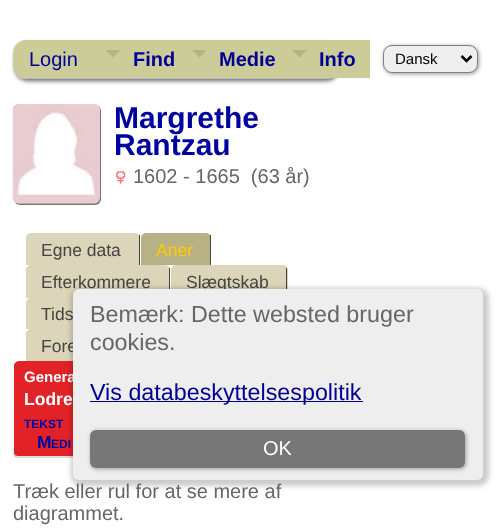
async function draw(canvas) {
	canvas.width = 497;
	canvas.height = 529;
	const c = canvas.getContext('2d');
	c.miterLimit = 4;
	c.fontKerning = 'normal';
	async function loadImage(src) {
		const img = new Image();
		img.src = src;
		await img.decode();
		return img;
	}

	c.fillStyle = '#fff';
	c.fillRect(0, 0, 497, 529);
	c.fillStyle = '#666';
	c.filter = 'blur(2px)';
	c.beginPath();
	c.roundRect(15, 43, 324, 38, 13);
	c.fill();
	c.filter = 'none';
	c.fillStyle = '#cc9';
	c.beginPath();
	c.roundRect(13, 40, 323, 39, 13);
	c.fill();
	c.fillStyle = '#bbb';
	c.fillRect(19, 78, 311, 1);
	c.font = '20px Liberation Sans';
	c.fillStyle = '#009';
	c.fillText('Login', 29, 66);
	c.fillStyle = '#cc9';
	c.fillRect(323, 40, 47, 38);
	c.drawImage(await loadImage('img1.png'), 106, 50, 14, 8);
	c.font = 'bold 20px Liberation Sans';
	c.fillStyle = '#009';
	c.fillText('Find', 133, 66);
	c.drawImage(await loadImage('img2.png'), 192, 50, 15, 8);
	c.fillText('Medie', 219, 66);
	c.drawImage(await loadImage('img3.png'), 292, 50, 15, 8);
	c.fillText('Info', 319, 66);
	c.fillStyle = '#999';
	c.filter = 'blur(2px)';
	c.beginPath();
	c.roundRect(384, 46, 95, 28, 9);
	c.fill();
	c.filter = 'none';
	c.fillStyle = '#efefef';
	c.beginPath();
	c.roundRect(383.5, 45.5, 94, 27, 8.5);
	c.fill();
	c.strokeStyle = '#808080';
	c.stroke();
	c.beginPath();
	c.moveTo(461.5, 56);
	c.lineTo(466.5, 61);
	c.lineTo(471.5, 56);
	c.strokeStyle = '#000';
	c.lineWidth = 2.5;
	c.stroke();
	c.font = '15px Liberation Sans';
	c.fillStyle = '#000';
	c.fillText('Dansk', 395, 64);
	c.fillStyle = '#777';
	c.filter = 'blur(0.5px)';
	c.beginPath();
	c.roundRect(14, 105, 87, 100, 6);
	c.fill();
	c.filter = 'none';
	c.drawImage(await loadImage('img4.png'), 12, 104, 88, 100);
	c.font = 'bold 30px Liberation Sans';
	c.fillStyle = '#0000a3';
	c.fillText('Margrethe', 114, 128);
	c.fillText('Rantzau', 114, 155);
	c.drawImage(await loadImage('img5.png'), 116, 171, 10, 13);
	c.font = '20px Liberation Sans';
	c.fillStyle = '#666';
	c.fillText('1602 - 1665  (63 år)', 133, 183);
	c.fillStyle = '#dcd5b9';
	c.beginPath();
	c.roundRect(26, 233, 114, 32, [5, 5, 0, 0]);
	c.fill();
	c.fillStyle = '#444';
	c.fillRect(139, 235, 1, 30);
	c.font = '17.5px Liberation Sans';
	c.fillText('Egne data', 41, 256);
	c.fillStyle = '#b9b186';
	c.beginPath();
	c.roundRect(141, 233, 70, 32, [5, 5, 0, 0]);
	c.fill();
	c.fillStyle = '#444';
	c.fillRect(210, 235, 1, 30);
	c.fillStyle = '#fc0';
	c.fillText('Aner', 156, 256);
	c.fillStyle = '#dcd5b9';
	c.beginPath();
	c.roundRect(26, 265, 144, 33, [5, 5, 0, 0]);
	c.fill();
	c.fillStyle = '#444';
	c.fillRect(169, 268, 1, 21);
	c.fillText('Efterkommere', 41, 288);
	c.fillStyle = '#dcd5b9';
	c.beginPath();
	c.roundRect(171, 265, 117, 33, [5, 5, 0, 0]);
	c.fill();
	c.fillStyle = '#444';
	c.fillRect(286, 268, 1, 21);
	c.fillText('Slægtskab', 186, 288);
	c.fillStyle = '#dcd5b9';
	c.beginPath();
	c.roundRect(26, 298, 98, 31, [5, 5, 0, 0]);
	c.fill();
	c.fillStyle = '#444';
	c.fillText('Tids', 41, 320);
	c.fillStyle = '#dcd5b9';
	c.beginPath();
	c.roundRect(26, 329, 93, 32, [5, 5, 0, 0]);
	c.fill();
	c.fillStyle = '#444';
	c.fillText('Fore', 41, 352);
	c.fillStyle = '#e32227';
	c.beginPath();
	c.roundRect(14, 361, 321, 97, 5);
	c.fill();
	c.fillStyle = '#ddd';
	c.beginPath();
	c.moveTo(19, 361);
	c.lineTo(330, 361);
	c.bezierCurveTo(333, 361, 335, 363, 335, 366);
	c.lineTo(335, 452);
	c.bezierCurveTo(335, 455, 333, 458, 330, 458);
	c.lineTo(19, 458);
	c.bezierCurveTo(16, 458, 14, 455, 14, 452);
	c.lineTo(14, 366);
	c.bezierCurveTo(14, 363, 16, 361, 19, 361);
	c.closePath();
	c.moveTo(19, 361);
	c.lineTo(330, 361);
	c.bezierCurveTo(332, 361, 334, 363, 334, 366);
	c.lineTo(334, 452);
	c.bezierCurveTo(334, 455, 332, 456, 330, 456);
	c.lineTo(19, 456);
	c.bezierCurveTo(16, 456, 14, 455, 14, 452);
	c.lineTo(14, 366);
	c.bezierCurveTo(14, 363, 16, 361, 19, 361);
	c.closePath();
	c.fill('evenodd');
	c.font = 'bold 15px Liberation Sans';
	c.fillStyle = '#fff';
	c.fillText('Genera', 24, 382);
	c.font = 'bold 17.5px Liberation Sans';
	c.fillText('Lodre', 24, 405);
	c.font = 'bold 12px Liberation Sans';
	c.fillStyle = '#0000a3';
	c.fillText('TEKST', 24, 428);
	c.font = 'bold 17.5px Liberation Sans';
	c.fillText('M', 37, 448);
	c.font = 'bold 12px Liberation Sans';
	c.fillText('EDI', 51, 448);
	c.fillStyle = '#00000033';
	c.filter = 'blur(2.5px)';
	c.beginPath();
	c.roundRect(71, 288, 418, 198, 10);
	c.fill();
	c.filter = 'none';
	c.fillStyle = '#eee';
	c.beginPath();
	c.roundRect(73, 289, 410, 191, 6);
	c.fill();
	c.font = '23.3px Liberation Sans';
	c.fillStyle = '#666';
	c.fillText('Bemærk: Dette websted bruger', 90, 322);
	c.fillText('cookies.', 90, 350);
	c.fillStyle = '#009';
	c.fillRect(90, 401, 273, 1);
	c.fillText('Vis databeskyttelsespolitik', 90, 400);
	c.fillStyle = '#999';
	c.filter = 'blur(2px)';
	c.beginPath();
	c.roundRect(91, 431, 375, 38, 6);
	c.fill();
	c.filter = 'none';
	c.fillStyle = '#777';
	c.beginPath();
	c.roundRect(90, 430, 375, 38, 6);
	c.fill();
	c.font = '20px Liberation Sans';
	c.fillStyle = '#fff';
	c.fillText('OK', 263, 455);
	c.fillStyle = '#666';
	c.fillText('Træk eller rul for at se mere af', 13, 498);
	c.fillText('diagrammet.', 13, 520);
}

draw(document.querySelector('canvas'));
